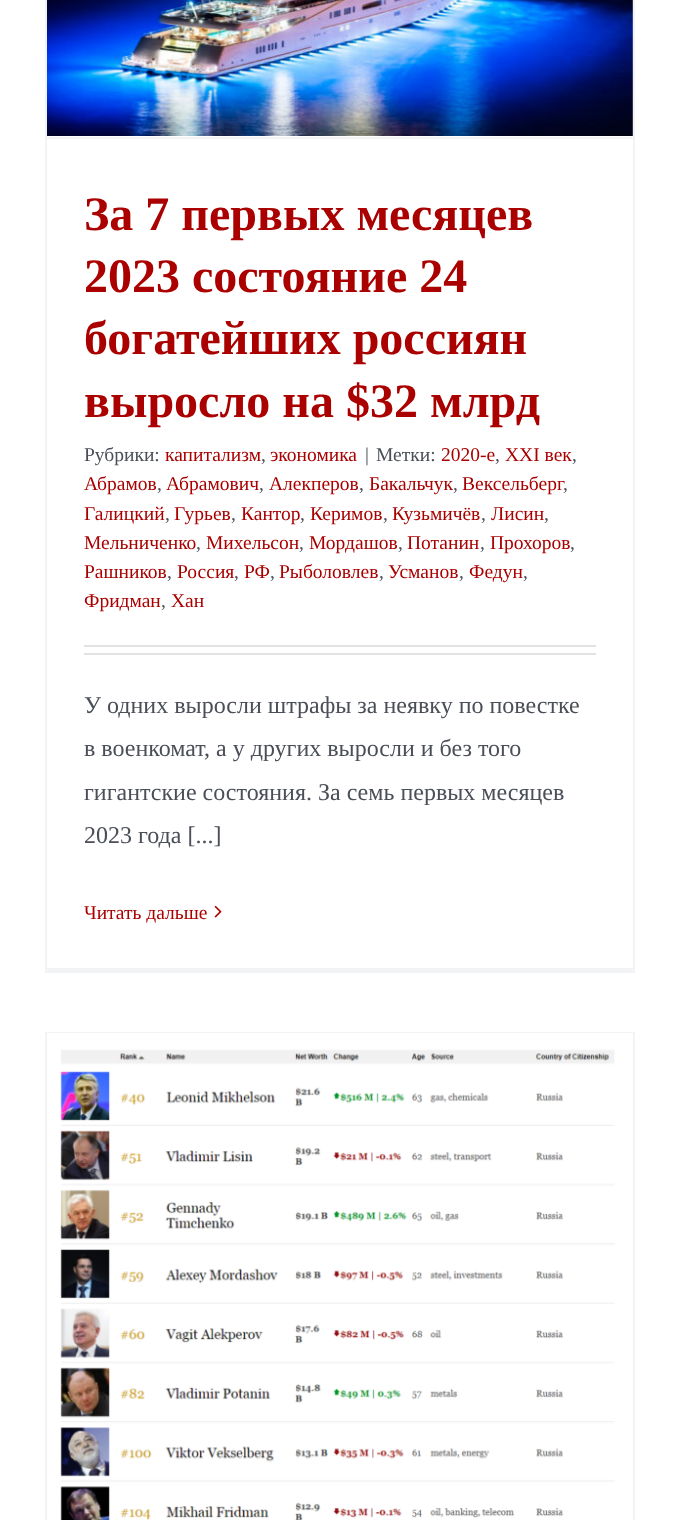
async function draw(canvas) {
	canvas.width = 679;
	canvas.height = 1520;
	const c = canvas.getContext('2d');
	c.miterLimit = 4;
	c.fontKerning = 'normal';
	async function loadImage(src) {
		const img = new Image();
		img.src = src;
		await img.decode();
		return img;
	}

	c.fillStyle = '#fff';
	c.fillRect(0, 0, 679, 1520);
	for (const [x, y, w, h, color] of [
		[633, 0, 2, 972, '#f2f3f5'],
		[45, 968, 590, 5, '#f2f3f5'],
		[45, 0, 2, 972, '#f2f3f5'],
		[47, 137, 586, 2, '#f2f3f5'],
	]) {
		c.fillStyle = color;
		c.fillRect(x, y, w, h);
	}
	c.drawImage(await loadImage('img1.png'), 47, 0, 586, 136);
	c.font = 'bold 48px Liberation Serif';
	c.fillStyle = '#a00';
	for (const [text, x, y] of [
		['За 7 первых месяцев', 84, 230],
		['2023 состояние 24', 84, 292],
		['богатейших россиян', 84, 354],
		['выросло на $32 млрд', 84, 417],
	]) {
		c.fillText(text, x, y);
	}
	c.font = '19.5px Liberation Serif';
	c.fillStyle = '#4a4e57';
	c.fillText('Рубрики:', 84, 461);
	c.fillStyle = '#a00';
	c.fillText('капитализм', 165, 461);
	c.fillStyle = '#4a4e57';
	c.fillText(',', 261, 461);
	c.fillStyle = '#a00';
	c.fillText('экономика', 270, 461);
	c.fillStyle = '#4a4e57';
	c.fillText('|', 365, 461);
	c.fillText('Метки:', 376, 461);
	c.fillStyle = '#a00';
	c.fillText('2020-е', 441, 461);
	c.fillStyle = '#4a4e57';
	c.fillText(',', 495, 461);
	c.fillStyle = '#a00';
	c.fillText('XXI век', 505, 461);
	c.fillStyle = '#4a4e57';
	c.fillText(',', 572, 461);
	c.fillStyle = '#a00';
	c.fillText('Абрамов', 84, 490);
	c.fillStyle = '#4a4e57';
	c.fillText(',', 157, 490);
	c.fillStyle = '#a00';
	c.fillText('Абрамович', 166, 490);
	c.fillStyle = '#4a4e57';
	c.fillText(',', 259, 490);
	c.fillStyle = '#a00';
	c.fillText('Алекперов', 269, 490);
	c.fillStyle = '#4a4e57';
	c.fillText(',', 359, 490);
	c.fillStyle = '#a00';
	c.fillText('Бакальчук', 369, 490);
	c.fillStyle = '#4a4e57';
	c.fillText(',', 453, 490);
	c.fillStyle = '#a00';
	c.fillText('Вексельберг', 462, 490);
	c.fillStyle = '#4a4e57';
	c.fillText(',', 563, 490);
	c.fillStyle = '#a00';
	c.fillText('Галицкий', 84, 520);
	c.fillStyle = '#4a4e57';
	c.fillText(',', 165, 520);
	c.fillStyle = '#a00';
	c.fillText('Гурьев', 174, 520);
	c.fillStyle = '#4a4e57';
	c.fillText(',', 231, 520);
	c.fillStyle = '#a00';
	c.fillText('Кантор', 241, 520);
	c.fillStyle = '#4a4e57';
	c.fillText(',', 300, 520);
	c.fillStyle = '#a00';
	c.fillText('Керимов', 310, 520);
	c.fillStyle = '#4a4e57';
	c.fillText(',', 383, 520);
	c.fillStyle = '#a00';
	c.fillText('Кузьмичёв', 392, 520);
	c.fillStyle = '#4a4e57';
	c.fillText(',', 481, 520);
	c.fillStyle = '#a00';
	c.fillText('Лисин', 491, 520);
	c.fillStyle = '#4a4e57';
	c.fillText(',', 544, 520);
	c.fillStyle = '#a00';
	c.fillText('Мельниченко', 84, 549);
	c.fillStyle = '#4a4e57';
	c.fillText(',', 196, 549);
	c.fillStyle = '#a00';
	c.fillText('Михельсон', 206, 549);
	c.fillStyle = '#4a4e57';
	c.fillText(',', 299, 549);
	c.fillStyle = '#a00';
	c.fillText('Мордашов', 309, 549);
	c.fillStyle = '#4a4e57';
	c.fillText(',', 398, 549);
	c.fillStyle = '#a00';
	c.fillText('Потанин', 407, 549);
	c.fillStyle = '#4a4e57';
	c.fillText(',', 480, 549);
	c.fillStyle = '#a00';
	c.fillText('Прохоров', 490, 549);
	c.fillStyle = '#4a4e57';
	c.fillText(',', 570, 549);
	c.fillStyle = '#a00';
	c.fillText('Рашников', 84, 578);
	c.fillStyle = '#4a4e57';
	c.fillText(',', 167, 578);
	c.fillStyle = '#a00';
	c.fillText('Россия', 177, 578);
	c.fillStyle = '#4a4e57';
	c.fillText(',', 234, 578);
	c.fillStyle = '#a00';
	c.fillText('РФ', 244, 578);
	c.fillStyle = '#4a4e57';
	c.fillText(',', 270, 578);
	c.fillStyle = '#a00';
	c.fillText('Рыболовлев', 279, 578);
	c.fillStyle = '#4a4e57';
	c.fillText(',', 379, 578);
	c.fillStyle = '#a00';
	c.fillText('Усманов', 388, 578);
	c.fillStyle = '#4a4e57';
	c.fillText(',', 459, 578);
	c.fillStyle = '#a00';
	c.fillText('Федун', 469, 578);
	c.fillStyle = '#4a4e57';
	c.fillText(',', 523, 578);
	c.fillStyle = '#a00';
	c.fillText('Фридман', 84, 607);
	c.fillStyle = '#4a4e57';
	c.fillText(',', 161, 607);
	c.fillStyle = '#a00';
	c.fillText('Хан', 171, 607);
	c.fillStyle = '#e2e2e2';
	c.fillRect(84, 645, 512, 2);
	c.fillRect(84, 653, 512, 2);
	c.font = '24px Liberation Serif';
	c.fillStyle = '#4a4e57';
	for (const [text, x, y] of [
		['У одних выросли штрафы за неявку по повестке', 84, 713],
		['в военкомат, а у других выросли и без того', 84, 756],
		['гигантские состояния. За семь первых месяцев', 84, 800],
		['2023 года [...]', 84, 843],
	]) {
		c.fillText(text, x, y);
	}
	c.font = '19.5px Liberation Serif';
	c.fillStyle = '#a00';
	c.fillText('Читать дальше', 84, 919);
	c.drawImage(await loadImage('img2.png'), 214, 905, 8, 13);
	for (const [x, y, w, h, color] of [
		[45, 1032, 590, 1, '#f2f3f5'],
		[633, 1032, 2, 488, '#f2f3f5'],
		[45, 1032, 2, 488, '#f2f3f5'],
	]) {
		c.fillStyle = color;
		c.fillRect(x, y, w, h);
	}
	c.drawImage(await loadImage('img3.png'), 47, 1033, 586, 487);
}

draw(document.querySelector('canvas'));
